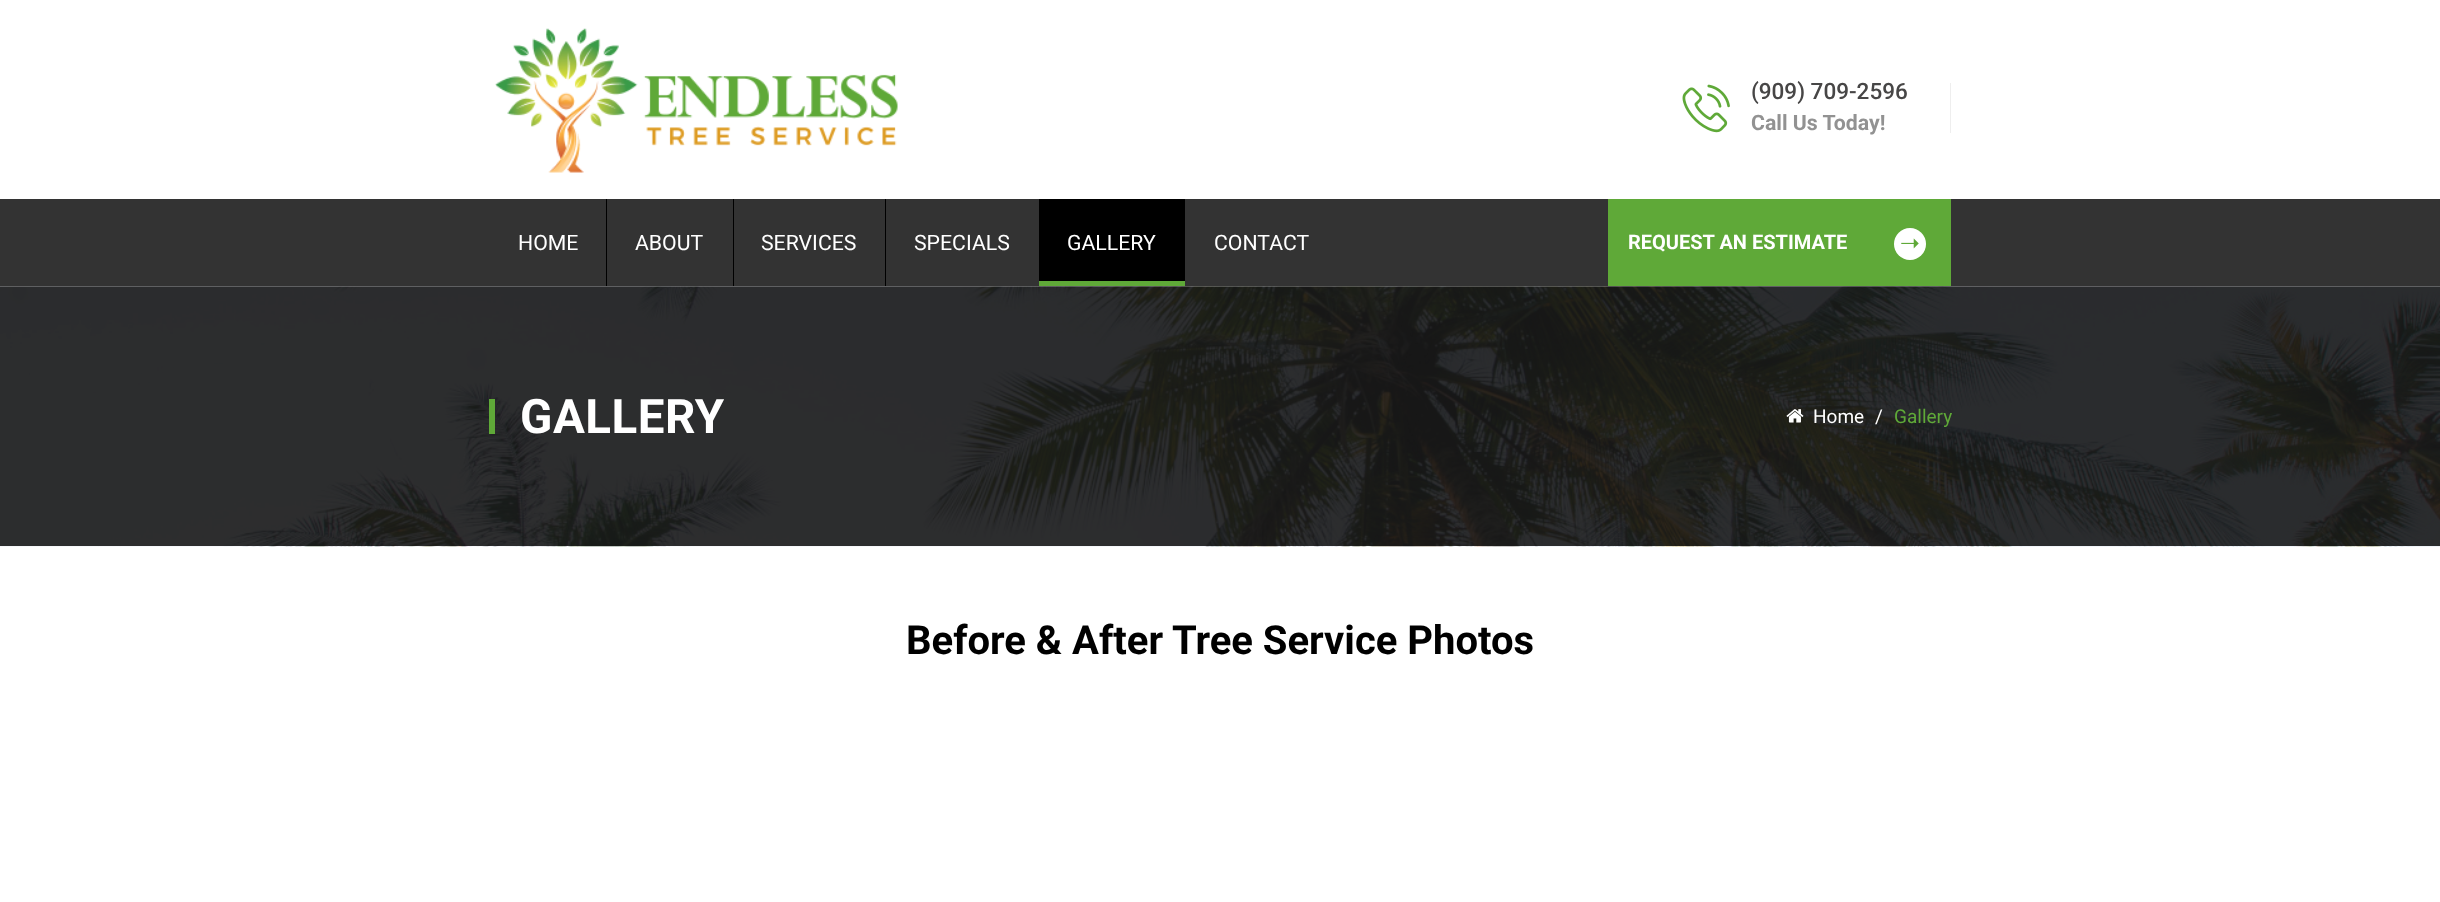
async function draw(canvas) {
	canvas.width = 2440;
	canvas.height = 902;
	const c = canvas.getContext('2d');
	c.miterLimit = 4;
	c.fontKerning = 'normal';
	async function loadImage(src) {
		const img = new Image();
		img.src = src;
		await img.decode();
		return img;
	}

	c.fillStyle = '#fff';
	c.fillRect(0, 0, 2440, 902);
	c.drawImage(await loadImage('img1.png'), 495, 28, 403, 145);
	c.drawImage(await loadImage('img2.png'), 1682, 84, 48, 49);
	c.font = '500 22.5px Roboto';
	c.fillStyle = '#474646';
	c.fillText('(909) 709-2596', 1751, 99);
	c.fillStyle = '#eee';
	c.fillRect(1950, 83, 1, 50);
	c.font = 'bold 21.25px Roboto';
	c.fillStyle = '#929292';
	c.fillText('Call Us Today!', 1751, 130);
	c.fillStyle = '#333';
	c.fillRect(0, 199, 2440, 87);
	c.font = '21.25px Roboto';
	c.fillStyle = '#fff';
	c.fillText('HOME', 518, 250);
	c.fillStyle = '#000';
	c.fillRect(606, 199, 1, 87);
	c.fillStyle = '#fff';
	c.fillText('ABOUT', 635, 250);
	c.fillStyle = '#000';
	c.fillRect(733, 199, 1, 87);
	c.fillStyle = '#fff';
	c.fillText('SERVICES', 761, 250);
	c.fillStyle = '#000';
	c.fillRect(885, 199, 1, 87);
	c.fillStyle = '#fff';
	c.fillText('SPECIALS', 914, 250);
	c.fillStyle = '#000';
	c.fillRect(1039, 199, 146, 82);
	c.fillStyle = '#fff';
	c.fillText('GALLERY', 1067, 250);
	c.fillStyle = '#5fa938';
	c.fillRect(1039, 281, 146, 5);
	c.fillStyle = '#fff';
	c.fillText('CONTACT', 1214, 250);
	c.fillStyle = '#5fa938';
	c.fillRect(1608, 199, 343, 87);
	c.font = 'bold 20px Roboto';
	c.fillStyle = '#fff';
	c.fillText('REQUEST AN ESTIMATE', 1628, 249);
	c.beginPath();
	c.arc(1910, 244, 16, 0, 2 * Math.PI);
	c.fill();
	c.drawImage(await loadImage('img3.png'), 1901, 238, 18, 11);
	c.drawImage(await loadImage('img4.png'), 0, 286, 2440, 261);
	c.fillStyle = '#5fa938';
	c.fillRect(489, 399, 6, 35);
	c.letterSpacing = '0.5px';
	c.font = 'bold 47.5px Roboto';
	c.fillStyle = '#fff';
	c.fillText('GALLERY', 520, 433);
	c.drawImage(await loadImage('img5.png'), 1786, 409, 18, 14);
	c.letterSpacing = '0px';
	c.font = '19px Roboto';
	c.fillText('Home', 1813, 423);
	c.fillText('/', 1875, 423);
	c.fillStyle = '#5fa938';
	c.fillText('Gallery', 1894, 423);
	c.font = 'bold 40px Roboto';
	c.fillStyle = '#000';
	c.fillText('Before & After Tree Service Photos', 906, 654);
}

draw(document.querySelector('canvas'));
